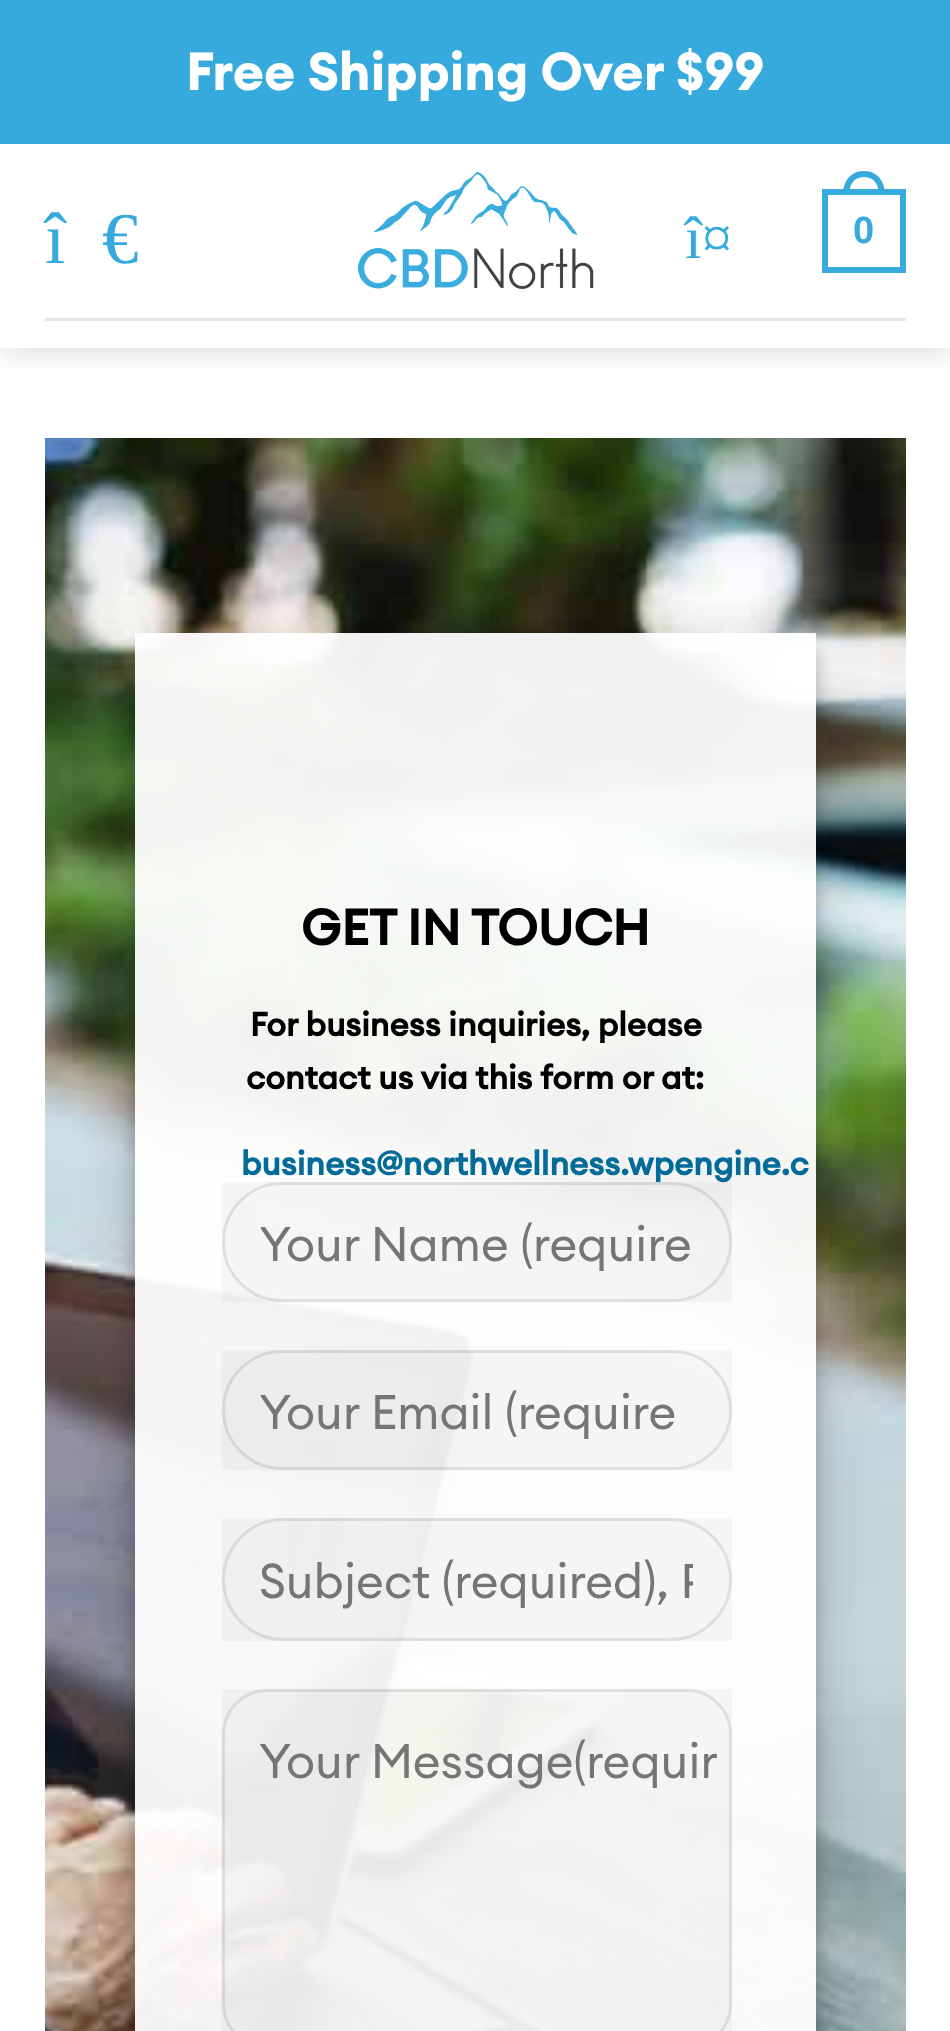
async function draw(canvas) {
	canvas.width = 950;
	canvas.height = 2031;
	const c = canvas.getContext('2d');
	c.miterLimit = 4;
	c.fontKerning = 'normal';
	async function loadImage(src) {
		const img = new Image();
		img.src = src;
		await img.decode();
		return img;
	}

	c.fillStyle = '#fff';
	c.fillRect(0, 0, 950, 2031);
	c.save();
	c.beginPath();
	c.rect(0, 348, 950, 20);
	c.clip();
	c.fillStyle = '#00000026';
	c.filter = 'blur(15px)';
	c.beginPath();
	c.rect(3, 3, 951, 348);
	c.fill();
	c.filter = 'none';
	c.restore();
	c.fillStyle = '#36aadd';
	c.fillRect(0, 0, 950, 144);
	c.font = 'bold 52.75px "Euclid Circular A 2"';
	c.fillStyle = '#fff';
	c.fillText('Free Shipping Over $99', 186, 90);
	c.font = '73px Liberation Serif';
	c.fillStyle = '#36aadd';
	c.fillText('î', 45, 263);
	c.fillText('€', 102, 263);
	c.drawImage(await loadImage('img1.png'), 357, 171, 237, 119);
	c.font = '60px Liberation Serif';
	c.fillText('î¤', 685, 258);
	c.strokeStyle = '#36aadd';
	c.lineWidth = 6;
	c.strokeRect(825, 192, 78, 78);
	c.beginPath();
	c.moveTo(864, 171);
	c.bezierCurveTo(878, 171, 885, 182, 885, 195);
	c.lineTo(843, 195);
	c.bezierCurveTo(843, 182, 850, 171, 864, 171);
	c.closePath();
	c.moveTo(864, 177);
	c.bezierCurveTo(875, 177, 879, 186, 879, 195);
	c.lineTo(849, 195);
	c.bezierCurveTo(849, 186, 853, 177, 864, 177);
	c.closePath();
	c.fill('evenodd');
	c.font = 'bold 38px Liberation Sans';
	c.fillText('0', 853, 243);
	c.fillStyle = '#e6e6e6';
	c.fillRect(45, 318, 861, 3);
	c.drawImage(await loadImage('img2.png'), 45, 438, 861, 1593);
	c.save();
	c.beginPath();
	c.moveTo(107, 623);
	c.lineTo(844, 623);
	c.lineTo(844, 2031);
	c.lineTo(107, 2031);
	c.closePath();
	c.moveTo(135, 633);
	c.lineTo(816, 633);
	c.lineTo(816, 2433);
	c.lineTo(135, 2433);
	c.closePath();
	c.clip('evenodd');
	c.fillStyle = '#00000038';
	c.filter = 'blur(9px)';
	c.beginPath();
	c.rect(135, 651, 681, 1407);
	c.fill();
	c.filter = 'none';
	c.restore();
	c.save();
	c.beginPath();
	c.moveTo(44, 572);
	c.lineTo(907, 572);
	c.lineTo(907, 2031);
	c.lineTo(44, 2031);
	c.closePath();
	c.moveTo(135, 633);
	c.lineTo(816, 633);
	c.lineTo(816, 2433);
	c.lineTo(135, 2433);
	c.closePath();
	c.clip('evenodd');
	c.fillStyle = '#00000030';
	c.filter = 'blur(30px)';
	c.beginPath();
	c.rect(135, 663, 681, 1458);
	c.fill();
	c.filter = 'none';
	c.restore();
	c.fillStyle = '#fffffff0';
	c.fillRect(135, 633, 681, 1398);
	c.font = 'bold 49.5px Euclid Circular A';
	c.fillStyle = '#000';
	c.fillText('GET IN TOUCH', 301, 945);
	c.font = 'bold 33px Euclid Circular A';
	c.fillText('For business inquiries, please', 250, 1036);
	c.fillText('contact us via this form or at:', 246, 1089);
	c.fillStyle = '#026b99';
	c.fillText('business@northwellness.wpengine.c', 241, 1175);
	c.fillStyle = '#00000008';
	c.fillRect(222, 1182, 510, 120);
	c.beginPath();
	c.roundRect(223.5, 1183.5, 507, 117, 58.5);
	c.strokeStyle = '#00000017';
	c.lineWidth = 3;
	c.stroke();
	c.save();
	c.beginPath();
	c.rect(261, 1212, 432, 60);
	c.clip();
	c.font = '48px Euclid Circular A';
	c.fillStyle = '#757575';
	c.fillText('Your Name (require', 259, 1261);
	c.restore();
	c.fillRect(222, 1350, 510, 120);
	c.beginPath();
	c.roundRect(223.5, 1351.5, 507, 117, 58.5);
	c.stroke();
	c.save();
	c.beginPath();
	c.rect(261, 1380, 432, 60);
	c.clip();
	c.font = '48px Euclid Circular A';
	c.fillStyle = '#757575';
	c.fillText('Your Email (require', 259, 1429);
	c.restore();
	c.fillRect(222, 1518, 510, 123);
	c.beginPath();
	c.roundRect(223.5, 1519.5, 507, 120, 60);
	c.stroke();
	c.save();
	c.beginPath();
	c.rect(261, 1551, 432, 60);
	c.clip();
	c.font = '48px Euclid Circular A';
	c.fillStyle = '#757575';
	c.fillText('Subject (required), P', 259, 1598);
	c.restore();
	c.fillRect(222, 1689, 510, 342);
	c.beginPath();
	c.roundRect(223.5, 1690.5, 507, 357, 43.5);
	c.stroke();
	c.font = '48px Euclid Circular A';
	c.fillStyle = '#757575';
	c.fillText('Your Message(requir', 259, 1778);
}

draw(document.querySelector('canvas'));
